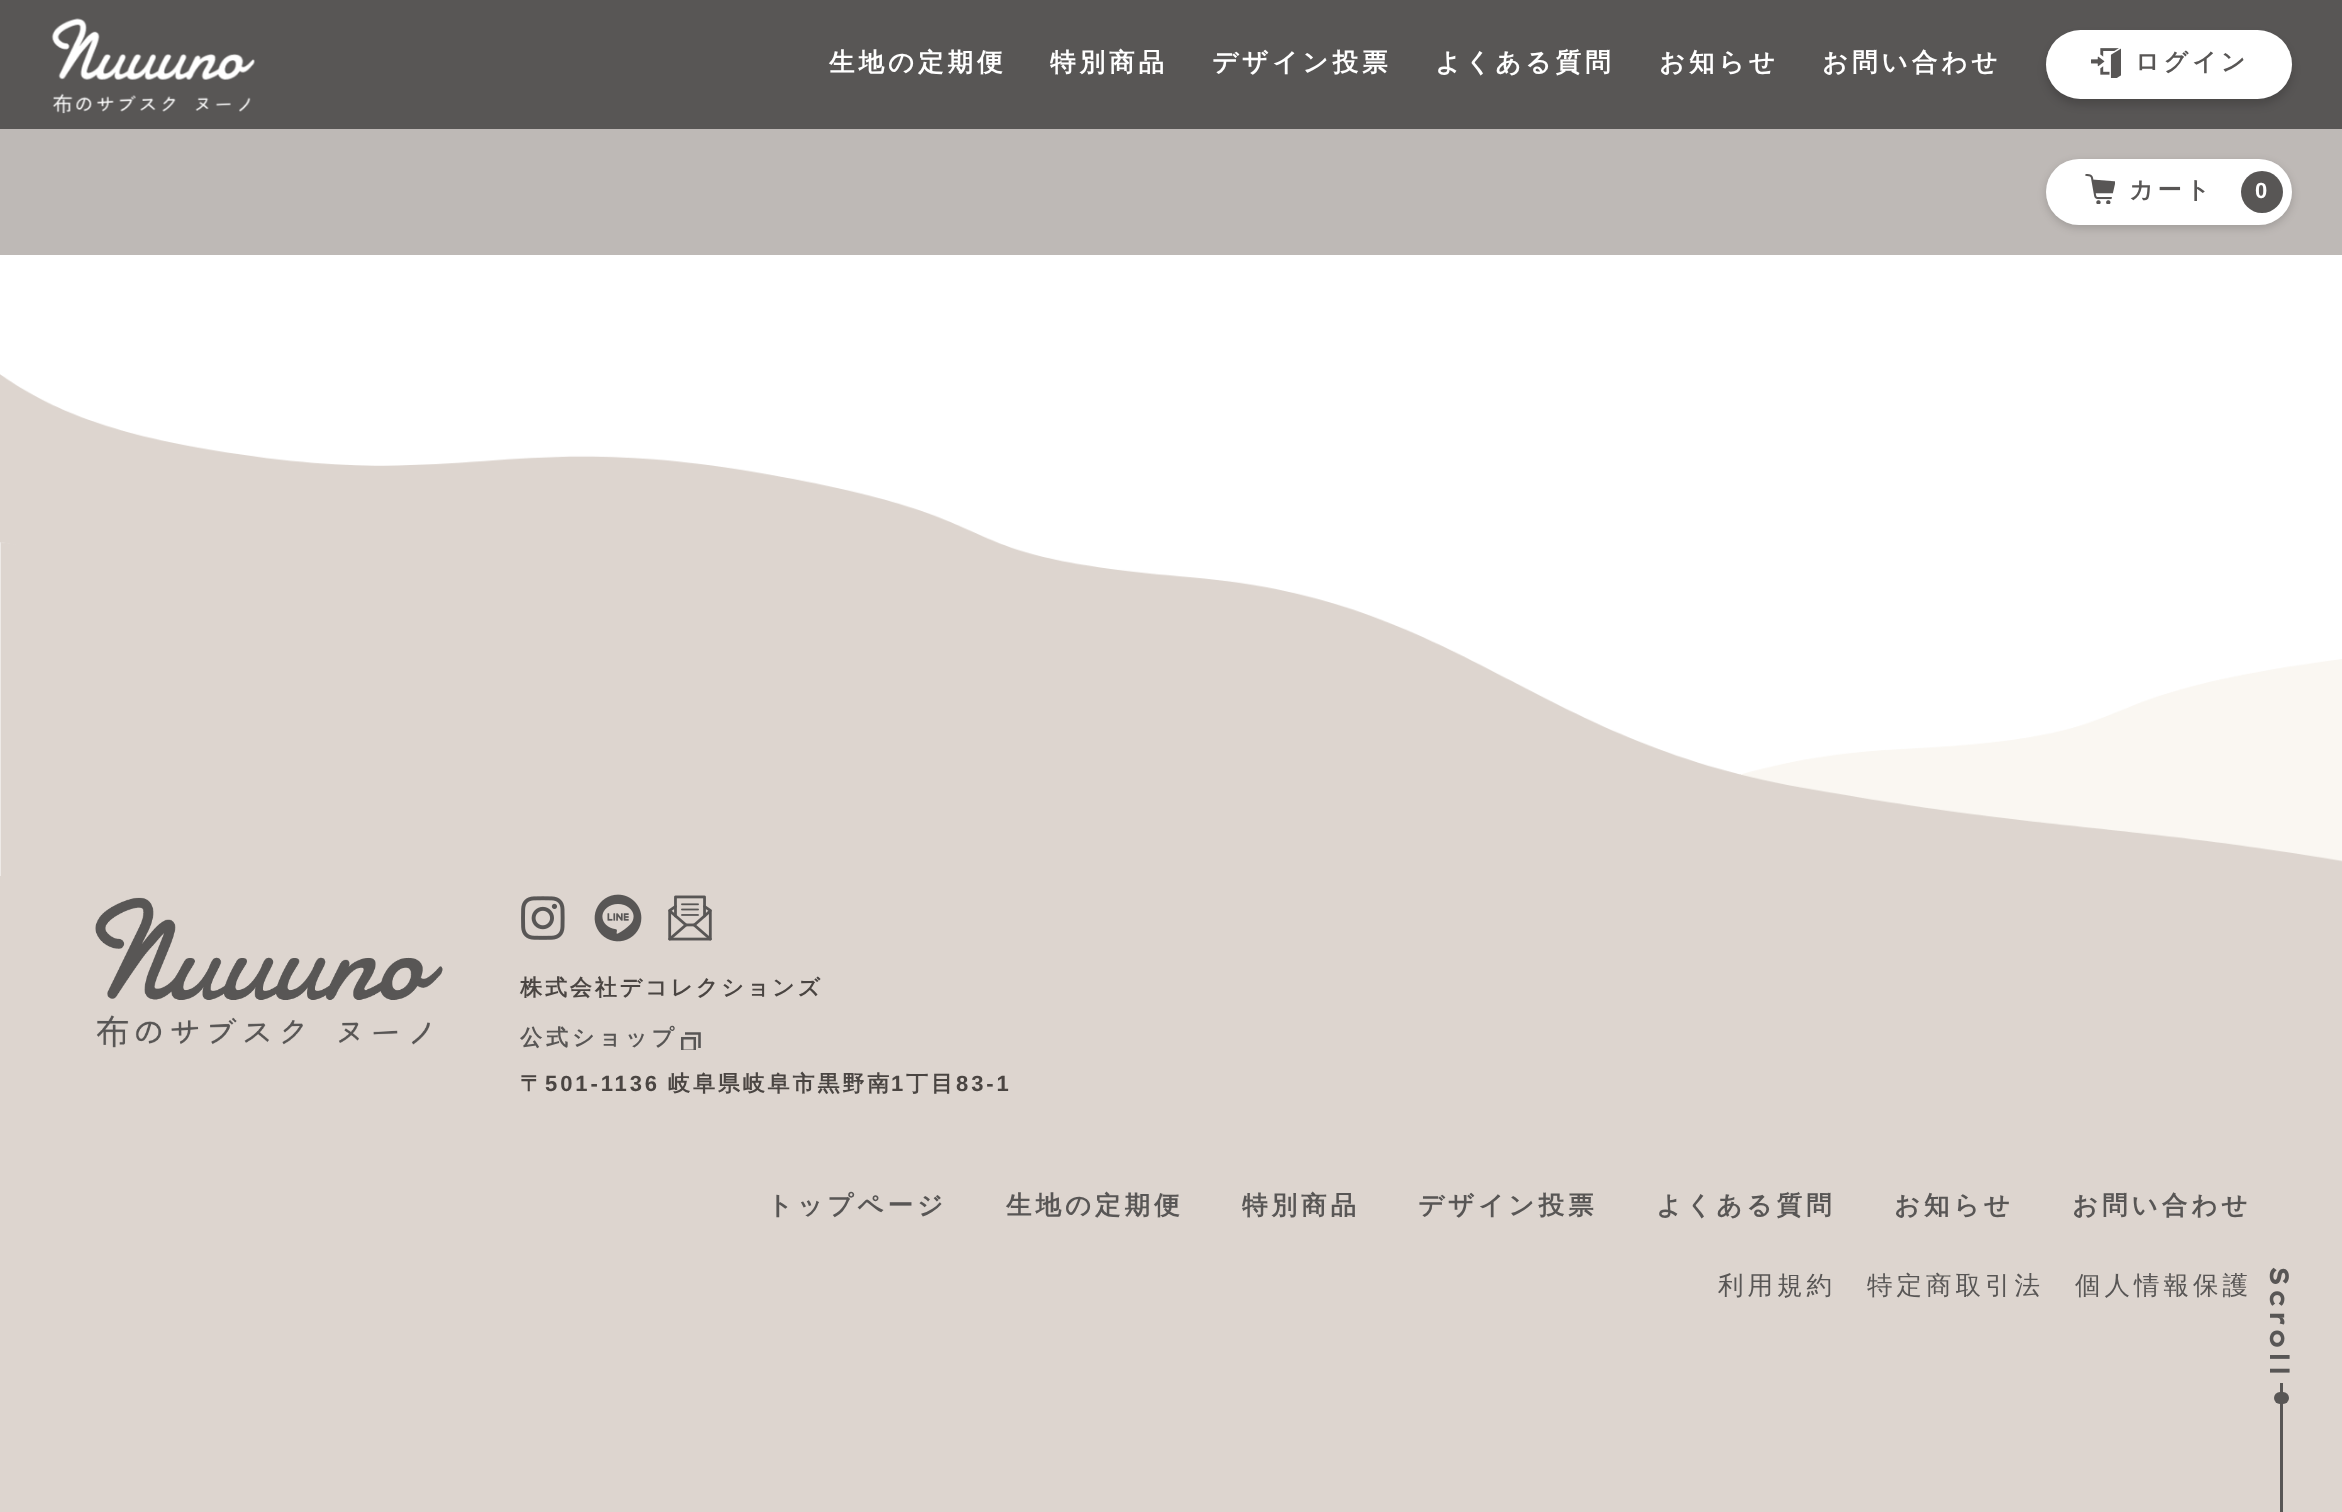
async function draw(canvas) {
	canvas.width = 2342;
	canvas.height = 1512;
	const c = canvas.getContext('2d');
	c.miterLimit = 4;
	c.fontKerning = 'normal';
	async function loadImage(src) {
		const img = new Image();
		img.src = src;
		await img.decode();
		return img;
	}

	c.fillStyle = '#fff';
	c.fillRect(0, 0, 2342, 1512);
	c.fillStyle = '#585655';
	c.fillRect(0, 0, 2342, 129);
	c.drawImage(await loadImage('img1.png'), 51, 18, 204, 96);
	c.letterSpacing = '4px';
	c.font = 'bold 25.5px WenQuanYi Zen Hei';
	c.fillStyle = '#fff';
	for (const [text, x, y] of [
		['生地の定期便', 829, 71],
		['特別商品', 1050, 71],
		['デザイン投票', 1212, 71],
		['よくある質問', 1435, 71],
		['お知らせ', 1659, 71],
		['お問い合わせ', 1822, 71],
	]) {
		c.fillText(text, x, y);
	}
	c.fillStyle = '#00000029';
	c.filter = 'blur(4.5px)';
	c.beginPath();
	c.roundRect(2046, 36, 246, 69, 34.5);
	c.fill();
	c.filter = 'none';
	c.fillStyle = '#fff';
	c.beginPath();
	c.roundRect(2046, 30, 246, 69, 34.5);
	c.fill();
	c.fillStyle = '#ffffff33';
	c.beginPath();
	c.roundRect(2046, 30, 246, 69, 34.5);
	c.fill();
	c.drawImage(await loadImage('img2.png'), 2091, 48, 30, 30);
	c.font = 'bold 24px WenQuanYi Zen Hei';
	c.fillStyle = '#585655';
	c.fillText('ログイン', 2135, 70);
	c.fillStyle = '#beb9b6';
	c.fillRect(0, 129, 2342, 126);
	c.fillStyle = '#00000029';
	c.filter = 'blur(4.5px)';
	c.beginPath();
	c.roundRect(2046, 162, 246, 66, 33);
	c.fill();
	c.filter = 'none';
	c.fillStyle = '#fff';
	c.beginPath();
	c.roundRect(2046, 159, 246, 66, 33);
	c.fill();
	c.fillStyle = '#ffffff33';
	c.beginPath();
	c.roundRect(2046, 159, 246, 66, 33);
	c.fill();
	c.drawImage(await loadImage('img3.png'), 2085, 174, 30, 30);
	c.fillStyle = '#585655';
	c.fillText('カート', 2129, 198);
	c.beginPath();
	c.arc(2262, 192, 21, 0, 2 * Math.PI);
	c.fill();
	c.letterSpacing = '0px';
	c.font = 'bold 22px Liberation Sans';
	c.fillStyle = '#fff';
	c.fillText('0', 2255, 198);
	c.fillStyle = '#ddd5cf';
	c.fillRect(0, 876, 2342, 636);
	c.drawImage(await loadImage('img4.png'), 0, 374, 2342, 502);
	c.drawImage(await loadImage('img5.png'), 95, 897, 348, 151);
	c.drawImage(await loadImage('img6.png'), 521, 896, 44, 44);
	c.drawImage(await loadImage('img7.png'), 594, 894, 48, 48);
	c.drawImage(await loadImage('img8.png'), 668, 895, 44, 46);
	c.letterSpacing = '2.9px';
	c.font = 'bold 22px WenQuanYi Zen Hei';
	c.fillStyle = '#4a4542';
	c.fillText('株式会社デコレクションズ', 520, 995);
	c.letterSpacing = '4px';
	c.fillStyle = '#585655';
	c.fillText('公式ショップ', 520, 1045);
	c.save();
	c.beginPath();
	c.rect(681, 1032, 21, 18);
	c.clip();
	c.strokeStyle = '#585655';
	c.lineWidth = 2.5;
	c.strokeRect(682.25, 1038.25, 12.5, 12.5);
	c.restore();
	c.beginPath();
	c.moveTo(685, 1033.5);
	c.lineTo(699.5, 1033.5);
	c.lineTo(699.5, 1048);
	c.strokeStyle = '#585655';
	c.lineWidth = 2.6;
	c.stroke();
	c.letterSpacing = '2.9px';
	c.fillStyle = '#4a4542';
	c.fillText('〒', 520, 1091);
	c.font = 'bold 22px Liberation Sans';
	c.fillText('501-1136', 545, 1091);
	c.font = 'bold 22px WenQuanYi Zen Hei';
	c.fillText('岐阜県岐阜市黒野南', 668, 1091);
	c.font = 'bold 22px Liberation Sans';
	c.fillText('1', 891, 1091);
	c.font = 'bold 22px WenQuanYi Zen Hei';
	c.fillText('丁目', 906, 1091);
	c.font = 'bold 22px Liberation Sans';
	c.fillText('83-1', 956, 1091);
	c.letterSpacing = '4px';
	c.font = 'bold 25.5px WenQuanYi Zen Hei';
	c.fillStyle = '#585655';
	for (const [text, x, y] of [
		['トップページ', 767, 1214],
		['生地の定期便', 1006, 1214],
		['特別商品', 1242, 1214],
		['デザイン投票', 1418, 1214],
		['よくある質問', 1656, 1214],
		['お知らせ', 1894, 1214],
		['お問い合わせ', 2072, 1214],
	]) {
		c.fillText(text, x, y);
	}
	c.font = '500 25.5px WenQuanYi Zen Hei';
	for (const [text, x, y] of [
		['利用規約', 1718, 1294],
		['特定商取引法', 1867, 1294],
		['個人情報保護', 2075, 1294],
	]) {
		c.fillText(text, x, y);
	}
	c.font = 'bold 25.5px Lexend Exa';
	c.save();
	c.translate(2270, 1266);
	c.rotate(90 * Math.PI / 180);
	c.fillText('Scroll', 0, 0);
	c.restore();
	c.fillRect(2280, 1383, 3, 129);
	c.beginPath();
	c.roundRect(2274, 1392, 15, 12, 6);
	c.fill();
}

draw(document.querySelector('canvas'));
